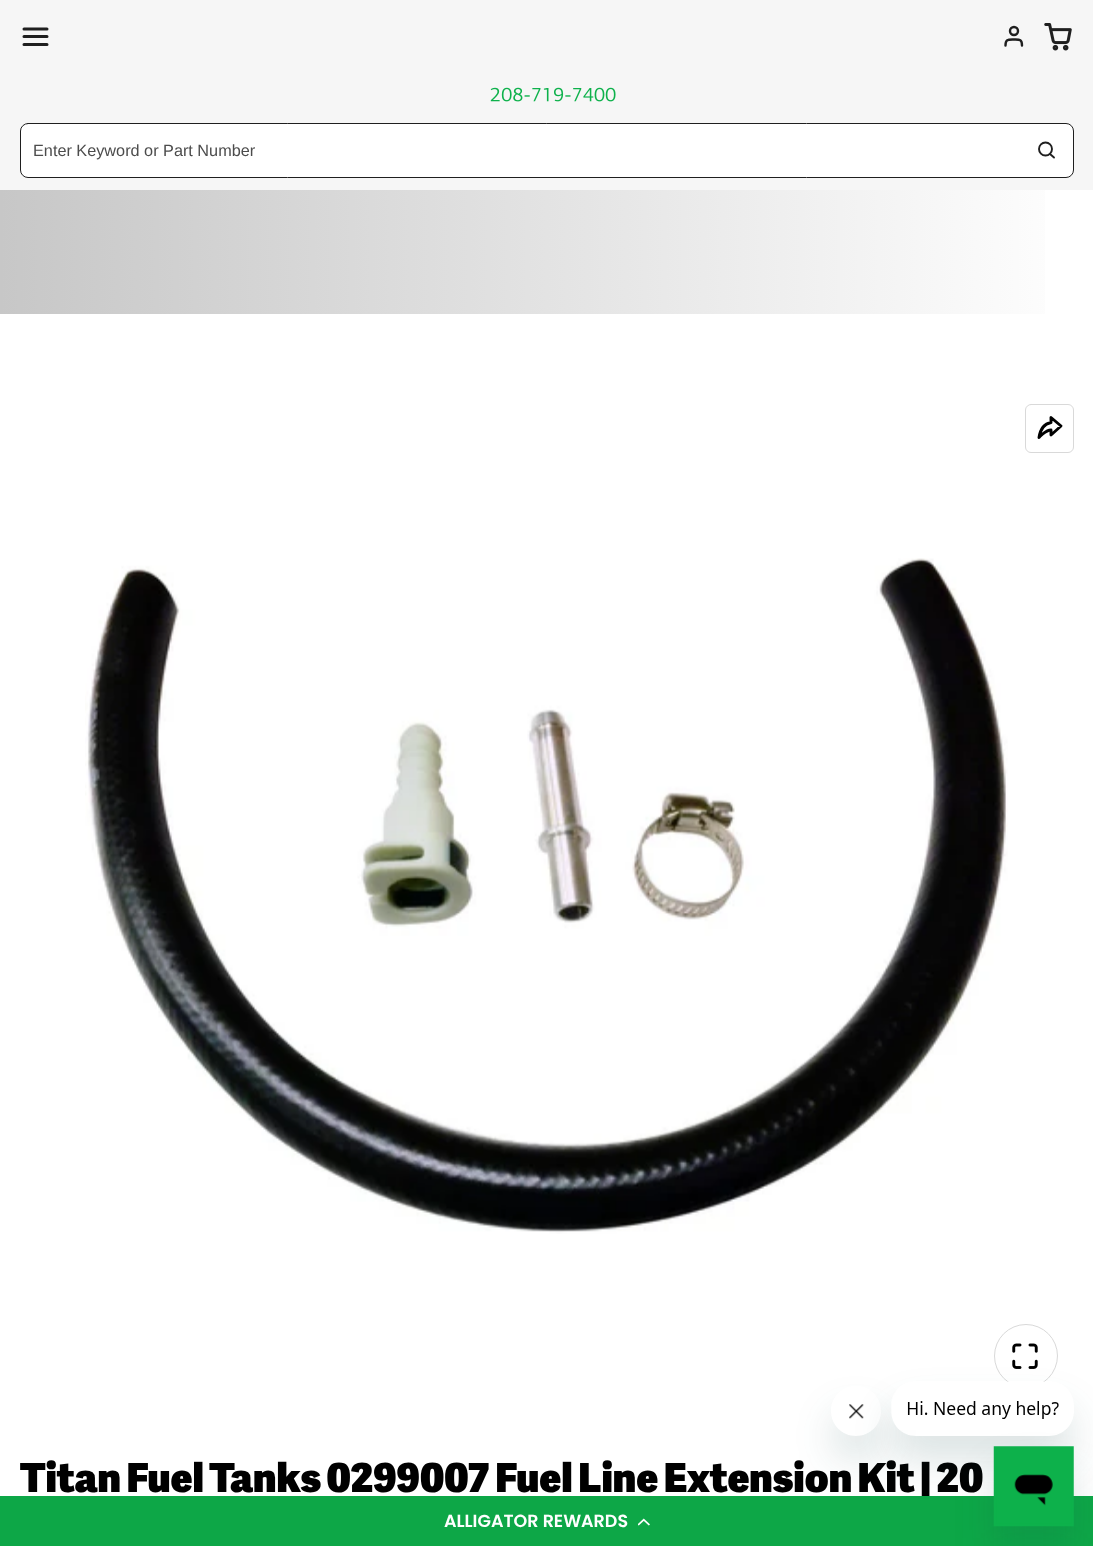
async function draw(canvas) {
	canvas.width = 1093;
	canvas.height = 1546;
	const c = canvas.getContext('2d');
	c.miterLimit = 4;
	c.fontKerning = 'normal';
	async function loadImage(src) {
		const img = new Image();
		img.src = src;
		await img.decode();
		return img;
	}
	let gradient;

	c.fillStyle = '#fff';
	c.fillRect(0, 0, 1093, 1546);
	c.fillStyle = '#f6f6f6';
	c.fillRect(0, 0, 1093, 190);
	c.beginPath();
	c.moveTo(24, 36.5);
	c.lineTo(47, 36.5);
	c.moveTo(24, 29);
	c.lineTo(47, 29);
	c.moveTo(24, 44.5);
	c.lineTo(47, 44.5);
	c.strokeStyle = '#1f1f1f';
	c.lineWidth = 3;
	c.lineCap = 'round';
	c.lineJoin = 'round';
	c.stroke();
	c.beginPath();
	c.moveTo(1022, 45.5);
	c.bezierCurveTo(1022, 39, 1019.5, 39.5, 1014, 39.5);
	c.bezierCurveTo(1008, 39.5, 1005.5, 39, 1005.5, 45.5);
	c.lineWidth = 2.4;
	c.stroke();
	c.beginPath();
	c.arc(1014, 31, 4, 0, 2 * Math.PI);
	c.stroke();
	c.drawImage(await loadImage('img1.png'), 1044, 23, 28, 28);
	c.drawImage(await loadImage('img2.png'), 490, 87, 126, 15);
	c.fillStyle = '#fff';
	c.beginPath();
	c.roundRect(20.5, 123.5, 1053, 54, 7.5);
	c.fill();
	c.lineWidth = 1;
	c.lineJoin = 'miter';
	c.stroke();
	c.font = '16.25px Liberation Sans';
	c.fillStyle = '#4c4c4c';
	c.fillText('Enter Keyword or Part Number', 33, 156);
	c.beginPath();
	c.arc(1045.5, 149, 6.5, 0, 2 * Math.PI);
	c.lineWidth = 1.9;
	c.stroke();
	c.beginPath();
	c.moveTo(1054, 157.5);
	c.lineTo(1050, 154);
	c.lineJoin = 'round';
	c.stroke();
	gradient = c.createLinearGradient(-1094, 252, 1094, 252);
	gradient.addColorStop(0, '#fff');
	gradient.addColorStop(0.5, '#c7c7c7');
	gradient.addColorStop(1, '#fff');
	c.fillStyle = gradient;
	c.fillRect(0, 190, 1045, 124);
	c.beginPath();
	c.roundRect(1025.5, 404.5, 48, 48, 5.5);
	c.strokeStyle = '#d9d9d9';
	c.lineWidth = 1;
	c.lineJoin = 'miter';
	c.stroke();
	c.beginPath();
	c.moveTo(1051, 417.5);
	c.lineTo(1051, 422.5);
	c.bezierCurveTo(1043, 424, 1040, 431, 1039, 437.5);
	c.bezierCurveTo(1038.5, 438, 1045.5, 430, 1051, 430);
	c.lineTo(1051, 435);
	c.lineTo(1061, 426);
	c.closePath();
	c.strokeStyle = '#000';
	c.lineWidth = 2.9;
	c.lineJoin = 'round';
	c.stroke();
	c.drawImage(await loadImage('img3.png'), 85, 558, 923, 676);
	c.beginPath();
	c.arc(1026, 1356, 31.5, 0, 2 * Math.PI);
	c.strokeStyle = '#d9d9d9';
	c.lineWidth = 1;
	c.stroke();
	c.drawImage(await loadImage('img4.png'), 1012, 1343, 26, 26);
	c.font = '900 40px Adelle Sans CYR';
	c.fillStyle = '#000';
	c.fillText('Titan Fuel Tanks 0299007 Fuel Line Extension Kit | 20', 20, 1492);
	c.fillStyle = '#0da747';
	c.fillRect(0, 1496, 1093, 50);
	c.font = '600 17.5px Poppins';
	c.fillStyle = '#fff';
	c.fillText('ALLIGATOR REWARDS', 444, 1527);
	c.drawImage(await loadImage('img5.png'), 638, 1518, 12, 8);
	c.save();
	c.beginPath();
	c.moveTo(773, 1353);
	c.lineTo(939, 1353);
	c.lineTo(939, 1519);
	c.lineTo(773, 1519);
	c.closePath();
	c.moveTo(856, 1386);
	c.bezierCurveTo(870, 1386, 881, 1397, 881, 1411);
	c.bezierCurveTo(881, 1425, 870, 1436, 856, 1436);
	c.bezierCurveTo(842, 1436, 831, 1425, 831, 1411);
	c.bezierCurveTo(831, 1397, 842, 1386, 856, 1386);
	c.closePath();
	c.clip('evenodd');
	c.fillStyle = '#17494d26';
	c.filter = 'blur(19px)';
	c.beginPath();
	c.roundRect(831, 1411, 50, 50, 25);
	c.fill();
	c.filter = 'none';
	c.restore();
	c.drawImage(await loadImage('img7.png'), 849, 1404, 15, 15);
	c.save();
	c.beginPath();
	c.moveTo(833, 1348);
	c.lineTo(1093, 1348);
	c.lineTo(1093, 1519);
	c.lineTo(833, 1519);
	c.closePath();
	c.moveTo(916, 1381);
	c.lineTo(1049, 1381);
	c.bezierCurveTo(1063, 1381, 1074, 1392, 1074, 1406);
	c.lineTo(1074, 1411);
	c.bezierCurveTo(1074, 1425, 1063, 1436, 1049, 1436);
	c.lineTo(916, 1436);
	c.bezierCurveTo(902, 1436, 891, 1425, 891, 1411);
	c.lineTo(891, 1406);
	c.bezierCurveTo(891, 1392, 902, 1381, 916, 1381);
	c.closePath();
	c.clip('evenodd');
	c.fillStyle = '#17494d26';
	c.filter = 'blur(19px)';
	c.beginPath();
	c.roundRect(891, 1406, 183, 55, 25);
	c.fill();
	c.filter = 'none';
	c.restore();
	c.drawImage(await loadImage('img6.png'), 892, 1381, 167, 49);
	c.fillStyle = '#17494d26';
	c.filter = 'blur(19px)';
	c.beginPath();
	c.rect(994, 1471, 80, 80);
	c.fill();
	c.filter = 'none';
	c.drawImage(await loadImage('img8.png'), 993, 1446, 81, 81);
}

draw(document.querySelector('canvas'));
